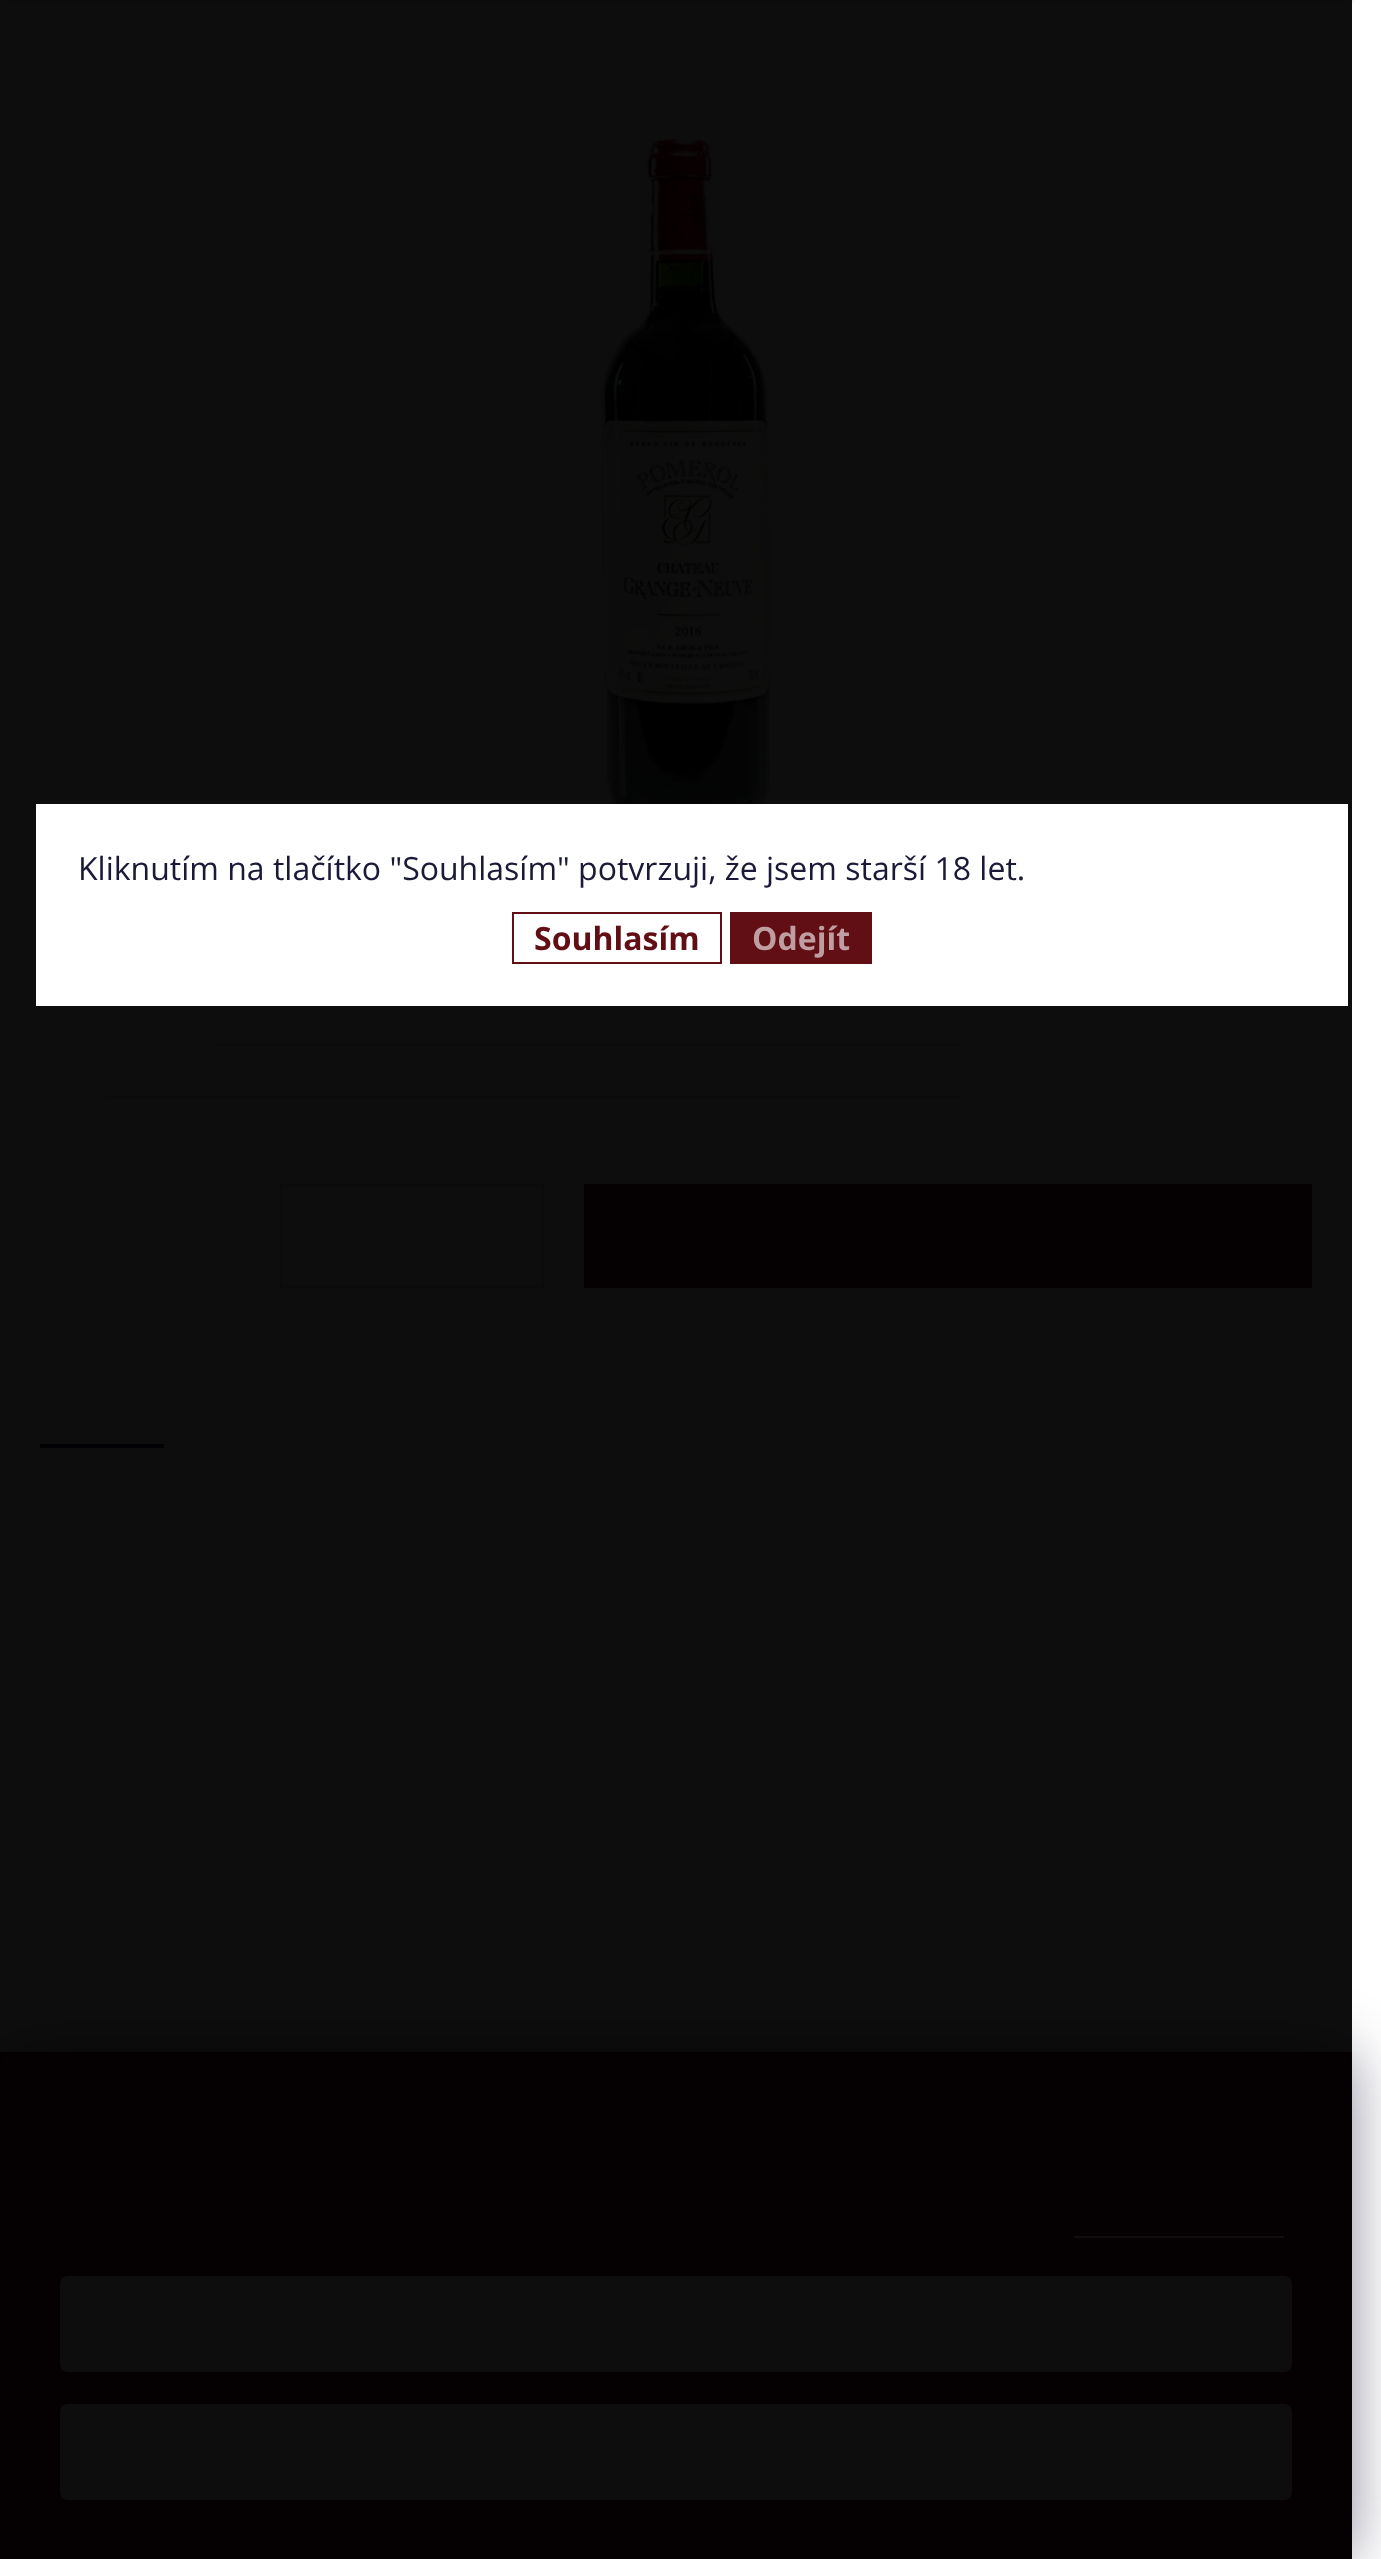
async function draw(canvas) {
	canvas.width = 1381;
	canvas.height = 2559;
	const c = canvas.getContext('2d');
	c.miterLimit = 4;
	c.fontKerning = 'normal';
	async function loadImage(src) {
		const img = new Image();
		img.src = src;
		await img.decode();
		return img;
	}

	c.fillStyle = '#fff';
	c.fillRect(0, 0, 1381, 2559);
	c.fillStyle = '#00000029';
	c.filter = 'blur(2px)';
	c.beginPath();
	c.rect(0, -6, 1352, 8);
	c.fill();
	c.filter = 'none';
	c.drawImage(await loadImage('img1.png'), 600, 129, 177, 675);
	for (const [x, y, w, h, color] of [
		[214, 1044, 748, 2, '#cfcfcf'],
		[106, 1096, 856, 2, '#cfcfcf'],
		[20, 1164, 1312, 144, '#f7f7f7'],
	]) {
		c.fillStyle = color;
		c.fillRect(x, y, w, h);
	}
	c.fillStyle = '#fff';
	c.beginPath();
	c.rect(281, 1185, 262, 102);
	c.fill();
	c.strokeStyle = '#cfcfcf';
	c.lineWidth = 2;
	c.stroke();
	for (const [x, y, w, h, color] of [
		[584, 1184, 728, 104, '#610e15'],
		[40, 1444, 124, 4, '#1a1937'],
		[0, 2052, 1352, 507, '#610e15'],
	]) {
		c.fillStyle = color;
		c.fillRect(x, y, w, h);
	}
	c.save();
	c.beginPath();
	c.moveTo(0, 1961);
	c.lineTo(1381, 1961);
	c.lineTo(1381, 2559);
	c.lineTo(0, 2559);
	c.closePath();
	c.moveTo(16, 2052);
	c.lineTo(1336, 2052);
	c.bezierCurveTo(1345, 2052, 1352, 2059, 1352, 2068);
	c.lineTo(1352, 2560);
	c.lineTo(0, 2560);
	c.lineTo(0, 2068);
	c.bezierCurveTo(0, 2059, 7, 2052, 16, 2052);
	c.closePath();
	c.clip('evenodd');
	c.fillStyle = '#1b193980';
	c.filter = 'blur(30px)';
	c.beginPath();
	c.roundRect(0, 2052, 1352, 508, 16);
	c.fill();
	c.filter = 'none';
	c.restore();
	c.fillStyle = '#f8fafb';
	c.fillRect(1074, 2236, 210, 2);
	c.fillStyle = '#fff';
	c.beginPath();
	c.roundRect(62, 2278, 1228, 92, 6);
	c.fill();
	c.strokeStyle = '#f8fafb';
	c.lineWidth = 4;
	c.stroke();
	c.beginPath();
	c.roundRect(60, 2404, 1232, 96, 8);
	c.fill();
	c.fillStyle = '#000000f2';
	c.fillRect(0, 0, 1352, 2559);
	c.fillStyle = '#fff';
	c.fillRect(36, 804, 1312, 202);
	c.font = '32px Open Sans';
	c.fillStyle = '#1a1937';
	c.fillText('Kliknutím na tlačítko "Souhlasím" potvrzuji, že jsem starší 18 let.', 78, 880);
	c.strokeStyle = '#610e15';
	c.lineWidth = 2;
	c.strokeRect(513, 913, 208, 50);
	c.font = 'bold 32px Open Sans';
	c.fillStyle = '#610e15';
	c.fillText('Souhlasím', 534, 950);
	c.fillRect(730, 912, 142, 52);
	c.fillStyle = '#bf9ea1';
	c.fillText('Odejít', 752, 950);
}

draw(document.querySelector('canvas'));
